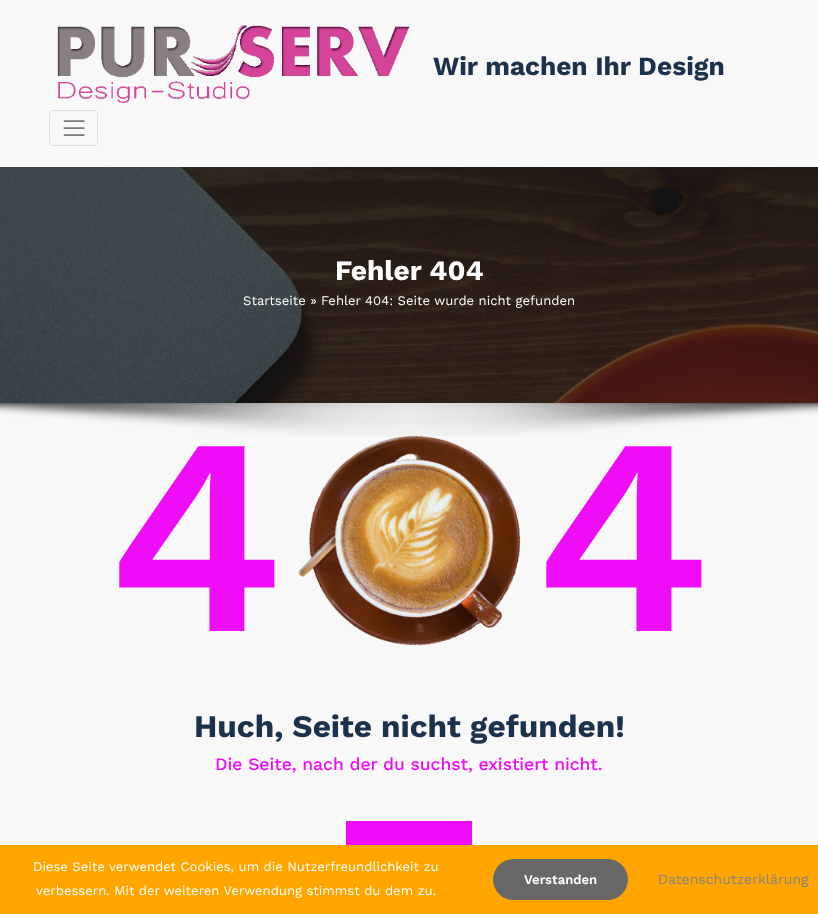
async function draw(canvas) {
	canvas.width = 818;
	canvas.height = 914;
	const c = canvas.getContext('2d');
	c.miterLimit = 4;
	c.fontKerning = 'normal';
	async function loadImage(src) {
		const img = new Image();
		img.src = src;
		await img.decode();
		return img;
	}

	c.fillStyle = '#f8f8f8';
	c.fillRect(0, 0, 818, 914);
	c.drawImage(await loadImage('img1.png'), 57, 25, 353, 78);
	c.font = 'bold 26.25px Work Sans';
	c.fillStyle = '#1c314c';
	c.fillText('Wir machen Ihr Design', 433, 75);
	c.beginPath();
	c.roundRect(49.5, 110.5, 48, 35, 3.5);
	c.strokeStyle = '#dfdfdf';
	c.stroke();
	c.drawImage(await loadImage('img2.png'), 63, 120, 22, 16);
	c.drawImage(await loadImage('img3.png'), 0, 167, 818, 236);
	c.font = 'bold 28px Work Sans';
	c.fillStyle = '#fff';
	c.fillText('Fehler 404', 335, 280);
	c.font = '13.1px Work Sans';
	c.fillText('Startseite » Fehler 404: Seite wurde nicht gefunden', 243, 305);
	c.drawImage(await loadImage('img4.png'), 0, 403, 818, 33);
	c.font = '600 280px Work Sans';
	c.fillStyle = '#ef0cf7';
	c.fillText('4', 107, 631);
	c.drawImage(await loadImage('img5.png'), 298, 436, 223, 210);
	c.fillText('4', 534, 631);
	c.font = 'bold 31.5px Work Sans';
	c.fillStyle = '#1c314c';
	c.fillText('Huch, Seite nicht gefunden!', 194, 737);
	c.font = '500 17.5px Work Sans';
	c.fillStyle = '#ef0cf7';
	c.fillText('Die Seite, nach der du suchst, existiert nicht.', 215, 770);
	c.fillRect(346, 821, 126, 24);
	c.fillStyle = '#ffa500';
	c.fillRect(0, 845, 818, 69);
	c.font = '13.1px Work Sans';
	c.fillStyle = '#fff';
	c.fillText('Diese Seite verwendet Cookies, um die Nutzerfreundlichkeit zu', 33, 871);
	c.fillText('verbessern. Mit der weiteren Verwendung stimmst du dem zu.', 36, 895);
	c.fillStyle = '#686868';
	c.beginPath();
	c.roundRect(493, 859, 135, 41, 20.5);
	c.fill();
	c.font = '600 13.1px Work Sans';
	c.fillStyle = '#fff';
	c.fillText('Verstanden', 524, 884);
	c.font = '14px Work Sans';
	c.fillStyle = '#848484';
	c.fillText('Datenschutzerklärung', 658, 884);
}

draw(document.querySelector('canvas'));
